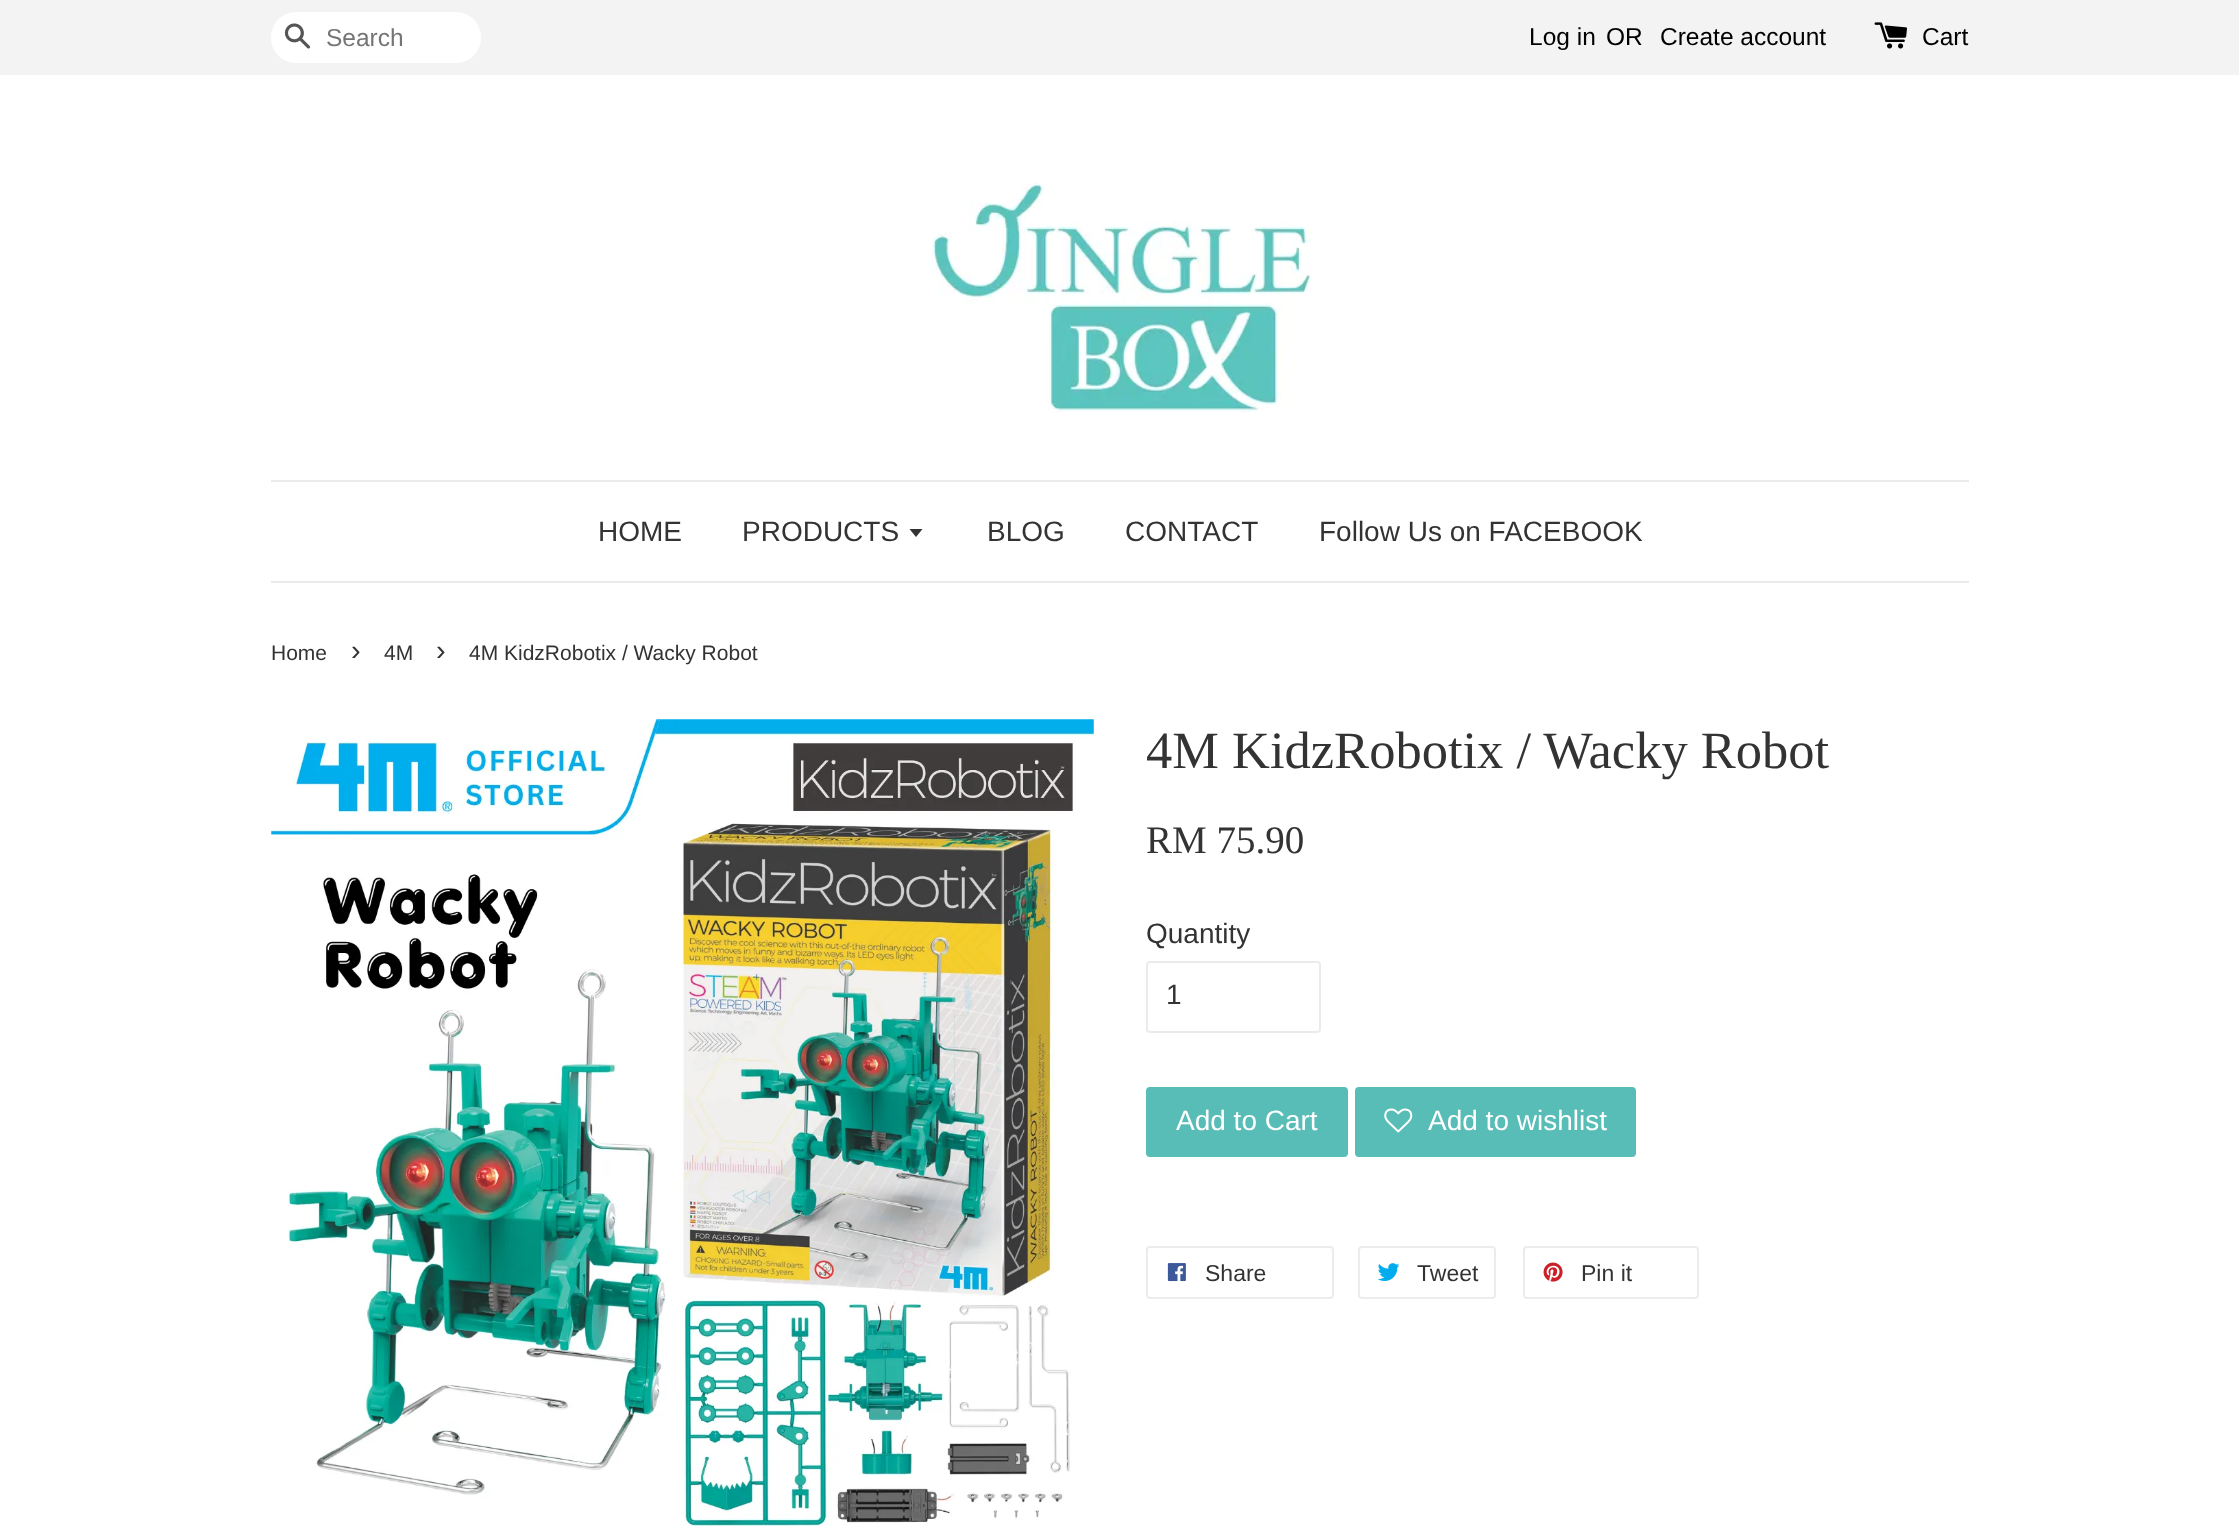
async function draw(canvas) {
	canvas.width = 2239;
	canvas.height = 1531;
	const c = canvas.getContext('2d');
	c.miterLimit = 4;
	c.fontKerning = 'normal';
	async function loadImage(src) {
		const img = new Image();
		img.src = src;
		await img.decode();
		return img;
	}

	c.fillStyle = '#fff';
	c.fillRect(0, 0, 2239, 1531);
	c.fillStyle = '#f3f3f3';
	c.fillRect(0, 0, 2239, 75);
	c.fillStyle = '#fff';
	c.beginPath();
	c.roundRect(271, 12, 210, 51, 25);
	c.fill();
	c.drawImage(await loadImage('img1.png'), 284, 23, 26, 26);
	c.font = '24.5px Liberation Sans';
	c.fillStyle = '#757575';
	c.fillText('Search', 326, 46);
	c.fillStyle = '#000';
	for (const [text, x, y] of [
		['Log in', 1529, 45],
		['OR', 1606, 45],
		['Create account', 1660, 45],
	]) {
		c.fillText(text, x, y);
	}
	c.drawImage(await loadImage('img2.png'), 1874, 22, 33, 27);
	c.fillText('Cart', 1922, 45);
	c.drawImage(await loadImage('img3.png'), 931, 183, 381, 230);
	c.fillStyle = '#ebebeb';
	c.fillRect(271, 480, 1698, 2);
	c.fillRect(271, 581, 1698, 2);
	c.font = '28px Liberation Sans';
	c.fillStyle = '#333';
	c.fillText('HOME', 598, 541);
	c.fillText('PRODUCTS', 742, 541);
	c.beginPath();
	c.moveTo(909.5, 529);
	c.lineTo(916, 537);
	c.lineTo(922.5, 529);
	c.closePath();
	c.fill();
	for (const [text, x, y] of [
		['BLOG', 987, 541],
		['CONTACT', 1125, 541],
		['Follow Us on FACEBOOK', 1319, 541],
	]) {
		c.fillText(text, x, y);
	}
	c.font = '21px Liberation Sans';
	c.fillText('Home', 271, 660);
	c.font = '29px Liberation Sans';
	c.fillText('›', 351, 660);
	c.font = '21px Liberation Sans';
	c.fillText('4M', 384, 660);
	c.font = '29px Liberation Sans';
	c.fillText('›', 436, 660);
	c.font = '21px Liberation Sans';
	c.fillText('4M KidzRobotix / Wacky Robot', 469, 660);
	c.drawImage(await loadImage('img4.png'), 271, 719, 823, 807);
	c.font = '52.5px Liberation Serif';
	c.fillText('4M KidzRobotix / Wacky Robot', 1146, 768);
	c.font = '39px Liberation Serif';
	c.fillText('RM 75.90', 1146, 853);
	c.font = '28px Liberation Sans';
	c.fillText('Quantity', 1146, 943);
	c.beginPath();
	c.roundRect(1147, 962, 173, 70, 3);
	c.strokeStyle = '#ebebeb';
	c.lineWidth = 2;
	c.stroke();
	c.fillText('1', 1166, 1004);
	c.fillStyle = '#59bdb7';
	c.beginPath();
	c.roundRect(1146, 1087, 202, 70, 4);
	c.fill();
	c.fillStyle = '#fff';
	c.fillText('Add to Cart', 1176, 1130);
	c.fillStyle = '#59bdb7';
	c.beginPath();
	c.roundRect(1355, 1087, 281, 70, 4);
	c.fill();
	c.drawImage(await loadImage('img5.png'), 1384, 1108, 29, 25);
	c.fillStyle = '#fff';
	c.fillText('Add to wishlist', 1428, 1130);
	c.beginPath();
	c.roundRect(1147, 1247, 186, 51, 3);
	c.strokeStyle = '#ececec';
	c.stroke();
	c.drawImage(await loadImage('img6.png'), 1167, 1263, 19, 19);
	c.font = '23px Liberation Sans';
	c.fillStyle = '#333';
	c.fillText('Share', 1205, 1281);
	c.beginPath();
	c.roundRect(1359, 1247, 136, 51, 3);
	c.stroke();
	c.drawImage(await loadImage('img7.png'), 1377, 1263, 23, 18);
	c.fillText('Tweet', 1417, 1281);
	c.beginPath();
	c.roundRect(1524, 1247, 174, 51, 3);
	c.stroke();
	c.drawImage(await loadImage('img8.png'), 1543, 1262, 20, 20);
	c.fillText('Pin it', 1581, 1281);
}

draw(document.querySelector('canvas'));
